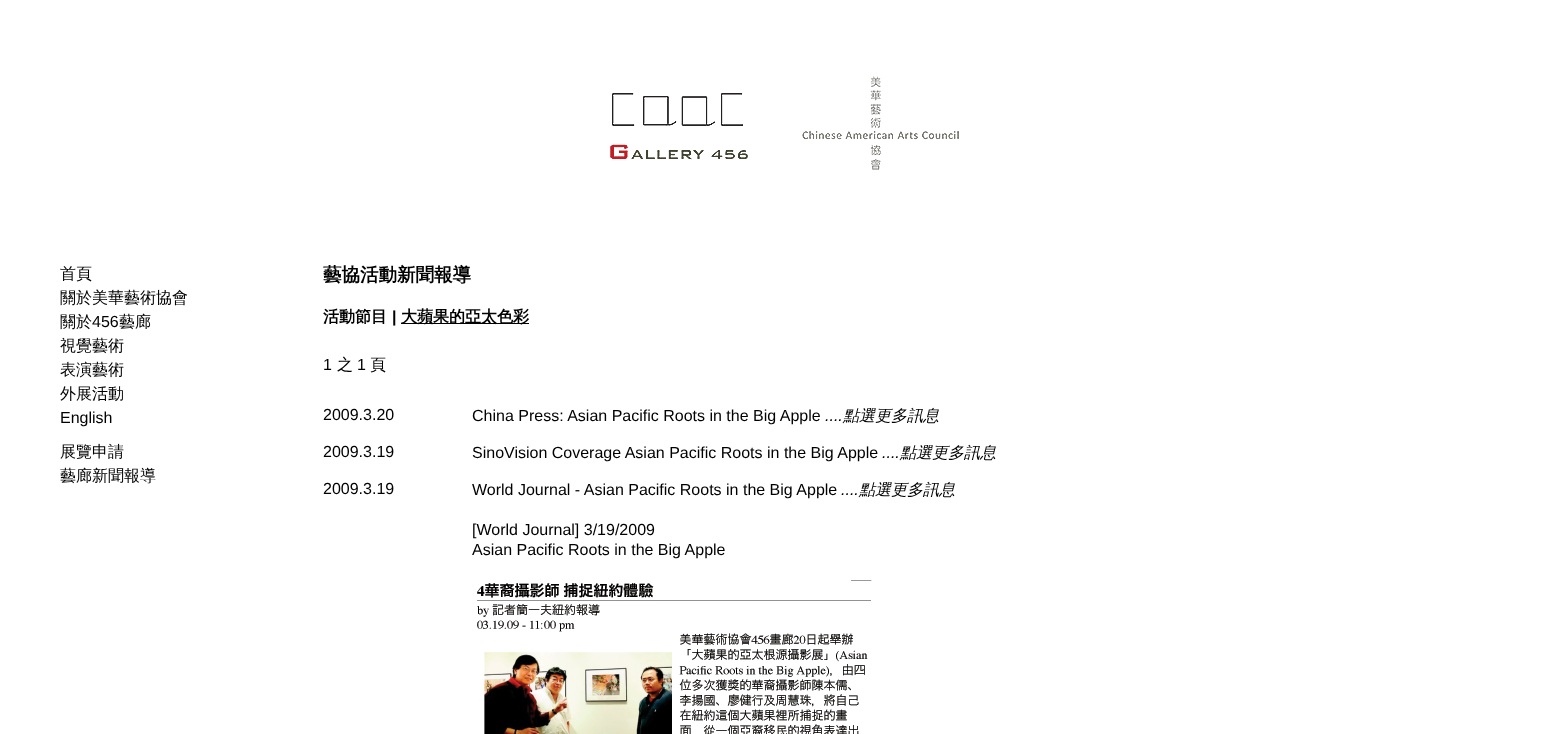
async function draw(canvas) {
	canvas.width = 1566;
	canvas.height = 734;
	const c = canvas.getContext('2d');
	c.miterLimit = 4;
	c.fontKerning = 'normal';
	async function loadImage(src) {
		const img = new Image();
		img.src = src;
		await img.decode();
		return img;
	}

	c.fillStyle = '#fff';
	c.fillRect(0, 0, 1566, 734);
	c.drawImage(await loadImage('img1.png'), 610, 76, 349, 94);
	c.font = '500 16px WenQuanYi Zen Hei';
	c.fillStyle = '#000';
	for (const [text, x, y] of [
		['首頁', 60, 279],
		['關於美華藝術協會', 60, 303],
		['關於', 60, 327],
	]) {
		c.fillText(text, x, y);
	}
	c.font = '16px Liberation Sans';
	c.fillText('456', 92, 327);
	c.font = '500 16px WenQuanYi Zen Hei';
	for (const [text, x, y] of [
		['藝廊', 119, 327],
		['視覺藝術', 60, 351],
		['表演藝術', 60, 375],
		['外展活動', 60, 399],
	]) {
		c.fillText(text, x, y);
	}
	c.font = '16px Liberation Sans';
	c.fillText('English', 60, 423);
	c.font = '500 16px WenQuanYi Zen Hei';
	c.fillText('展覽申請', 60, 457);
	c.fillText('藝廊新聞報導', 60, 481);
	c.font = 'bold 18.5px WenQuanYi Zen Hei';
	c.fillText('藝協活動新聞報導', 323, 281);
	c.font = 'bold 16px WenQuanYi Zen Hei';
	c.fillText('活動節目', 323, 322);
	c.font = 'bold 16px Liberation Sans';
	c.fillText('|', 392, 322);
	c.fillRect(401, 323, 128, 1);
	c.font = 'bold 16px WenQuanYi Zen Hei';
	c.fillText('大蘋果的亞太色彩', 401, 322);
	c.font = '16px Liberation Sans';
	c.fillText('1', 323, 370);
	c.font = '500 16px WenQuanYi Zen Hei';
	c.fillText('之', 337, 370);
	c.font = '16px Liberation Sans';
	c.fillText('1', 357, 370);
	c.font = '500 16px WenQuanYi Zen Hei';
	c.fillText('頁', 370, 370);
	c.font = '16px Liberation Sans';
	c.fillText('2009.3.20', 323, 420);
	c.fillText('China Press: Asian Pacific Roots in the Big Apple', 472, 421);
	c.font = 'italic 16px Liberation Sans';
	c.fillText('....', 825, 421);
	c.font = 'italic 500 16px WenQuanYi Zen Hei';
	c.fillText('點選更多訊息', 843, 421);
	c.font = '16px Liberation Sans';
	c.fillText('2009.3.19', 323, 457);
	c.fillText('SinoVision Coverage Asian Pacific Roots in the Big Apple', 472, 458);
	c.font = 'italic 16px Liberation Sans';
	c.fillText('....', 882, 458);
	c.font = 'italic 500 16px WenQuanYi Zen Hei';
	c.fillText('點選更多訊息', 900, 458);
	c.font = '16px Liberation Sans';
	c.fillText('2009.3.19', 323, 494);
	c.fillText('World Journal - Asian Pacific Roots in the Big Apple', 472, 495);
	c.font = 'italic 16px Liberation Sans';
	c.fillText('....', 841, 495);
	c.font = 'italic 500 16px WenQuanYi Zen Hei';
	c.fillText('點選更多訊息', 859, 495);
	c.font = '16px Liberation Sans';
	c.fillText('[World Journal] 3/19/2009', 472, 535);
	c.fillText('Asian Pacific Roots in the Big Apple', 472, 555);
	c.drawImage(await loadImage('img2.png'), 477, 580, 395, 154);
}

draw(document.querySelector('canvas'));
